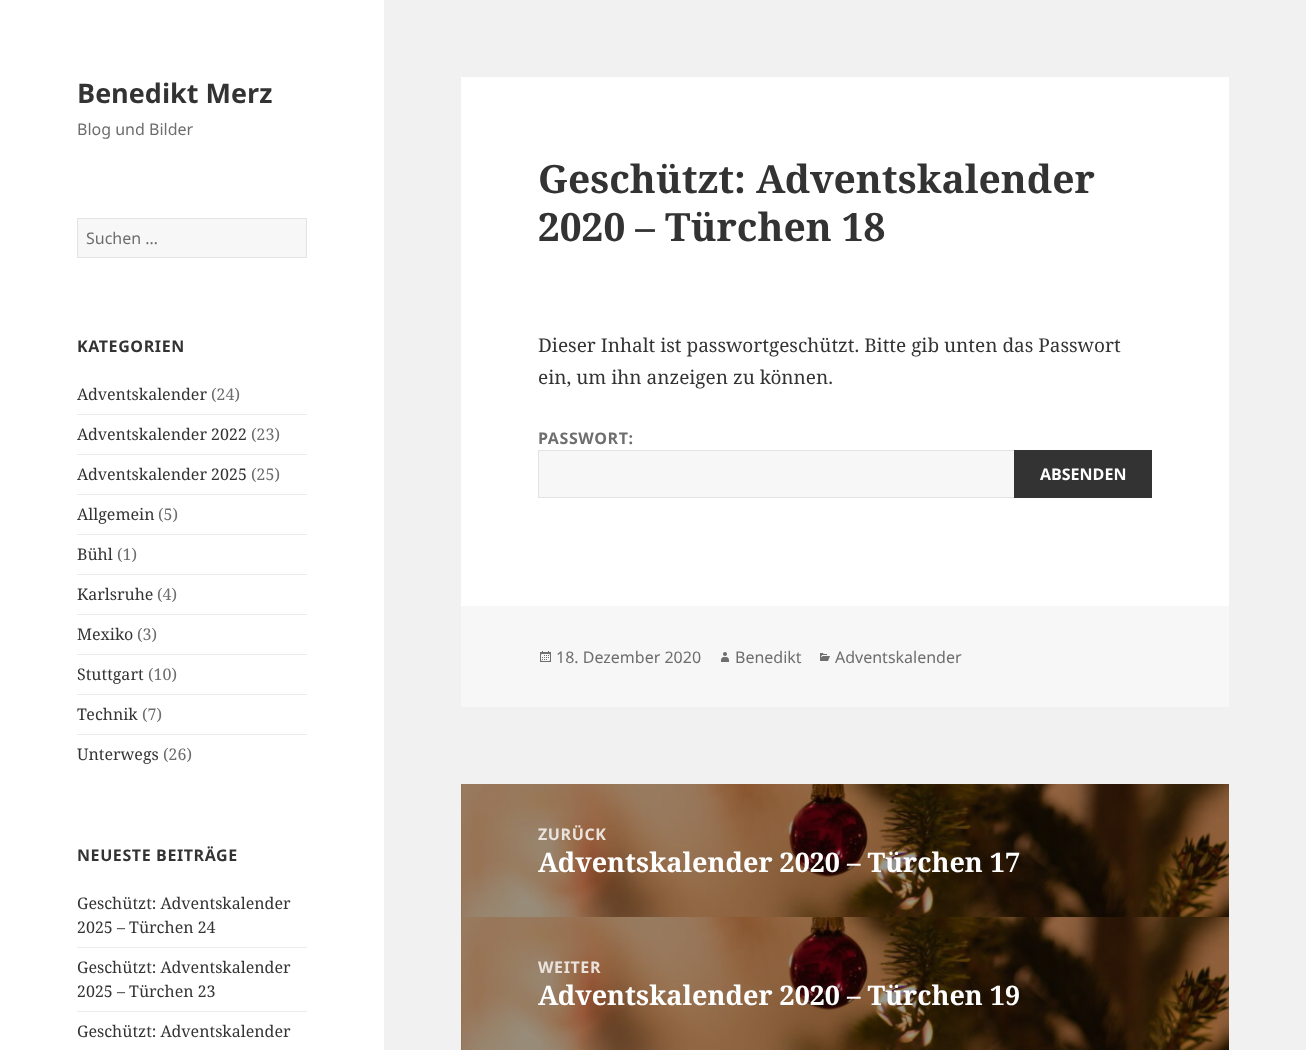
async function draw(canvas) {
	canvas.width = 1306;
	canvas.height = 1050;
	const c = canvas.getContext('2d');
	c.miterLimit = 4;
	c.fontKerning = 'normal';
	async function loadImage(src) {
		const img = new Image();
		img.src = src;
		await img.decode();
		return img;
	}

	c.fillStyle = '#f1f1f1';
	c.fillRect(0, 0, 1306, 1050);
	c.fillStyle = '#fff';
	c.fillRect(0, 0, 384, 1050);
	c.font = 'bold 27px Noto Sans';
	c.fillStyle = '#333';
	c.fillText('Benedikt Merz', 77, 103);
	c.font = '16px Noto Sans';
	c.fillStyle = '#6e6e6e';
	c.fillText('Blog und Bilder', 77, 135);
	c.fillStyle = '#f7f7f7';
	c.beginPath();
	c.rect(77.5, 218.5, 229, 39);
	c.fill();
	c.strokeStyle = '#e3e3e3';
	c.stroke();
	c.fillStyle = '#6e6e6e';
	c.fillText('Suchen …', 86, 244);
	c.letterSpacing = '0.6px';
	c.font = 'bold 16px Noto Sans';
	c.fillStyle = '#333';
	c.fillText('KATEGORIEN', 77, 352);
	c.letterSpacing = '0px';
	c.font = '16px Noto Serif';
	c.fillText('Adventskalender', 77, 400);
	c.fillStyle = '#6e6e6e';
	c.fillText('(24)', 211, 400);
	c.fillStyle = '#ebebeb';
	c.fillRect(77, 414, 230, 1);
	c.fillStyle = '#333';
	c.fillText('Adventskalender 2022', 77, 440);
	c.fillStyle = '#6e6e6e';
	c.fillText('(23)', 251, 440);
	c.fillStyle = '#ebebeb';
	c.fillRect(77, 454, 230, 1);
	c.fillStyle = '#333';
	c.fillText('Adventskalender 2025', 77, 480);
	c.fillStyle = '#6e6e6e';
	c.fillText('(25)', 251, 480);
	c.fillStyle = '#ebebeb';
	c.fillRect(77, 494, 230, 1);
	c.fillStyle = '#333';
	c.fillText('Allgemein', 77, 520);
	c.fillStyle = '#6e6e6e';
	c.fillText('(5)', 158, 520);
	c.fillStyle = '#ebebeb';
	c.fillRect(77, 534, 230, 1);
	c.fillStyle = '#333';
	c.fillText('Bühl', 77, 560);
	c.fillStyle = '#6e6e6e';
	c.fillText('(1)', 117, 560);
	c.fillStyle = '#ebebeb';
	c.fillRect(77, 574, 230, 1);
	c.fillStyle = '#333';
	c.fillText('Karlsruhe', 77, 600);
	c.fillStyle = '#6e6e6e';
	c.fillText('(4)', 157, 600);
	c.fillStyle = '#ebebeb';
	c.fillRect(77, 614, 230, 1);
	c.fillStyle = '#333';
	c.fillText('Mexiko', 77, 640);
	c.fillStyle = '#6e6e6e';
	c.fillText('(3)', 137, 640);
	c.fillStyle = '#ebebeb';
	c.fillRect(77, 654, 230, 1);
	c.fillStyle = '#333';
	c.fillText('Stuttgart', 77, 680);
	c.fillStyle = '#6e6e6e';
	c.fillText('(10)', 148, 680);
	c.fillStyle = '#ebebeb';
	c.fillRect(77, 694, 230, 1);
	c.fillStyle = '#333';
	c.fillText('Technik', 77, 720);
	c.fillStyle = '#6e6e6e';
	c.fillText('(7)', 142, 720);
	c.fillStyle = '#ebebeb';
	c.fillRect(77, 734, 230, 1);
	c.fillStyle = '#333';
	c.fillText('Unterwegs', 77, 760);
	c.fillStyle = '#6e6e6e';
	c.fillText('(26)', 163, 760);
	c.letterSpacing = '0.6px';
	c.font = 'bold 16px Noto Sans';
	c.fillStyle = '#333';
	c.fillText('NEUESTE BEITRÄGE', 77, 861);
	c.letterSpacing = '0px';
	c.font = '16px Noto Serif';
	c.fillText('Geschützt: Adventskalender', 77, 909);
	c.fillText('2025 – Türchen 24', 77, 933);
	c.fillStyle = '#ebebeb';
	c.fillRect(77, 947, 230, 1);
	c.fillStyle = '#333';
	c.fillText('Geschützt: Adventskalender', 77, 973);
	c.fillText('2025 – Türchen 23', 77, 997);
	c.fillStyle = '#ebebeb';
	c.fillRect(77, 1011, 230, 1);
	c.fillStyle = '#333';
	c.fillText('Geschützt: Adventskalender', 77, 1037);
	c.fillStyle = '#fff';
	c.fillRect(461, 77, 768, 529);
	c.font = 'bold 39px Noto Serif';
	c.fillStyle = '#333';
	c.fillText('Geschützt: Adventskalender', 538, 193);
	c.fillText('2020 – Türchen 18', 538, 241);
	c.font = '19px Noto Serif';
	c.fillText('Dieser Inhalt ist passwortgeschützt. Bitte gib unten das Passwort', 538, 352);
	c.fillText('ein, um ihn anzeigen zu können.', 538, 384);
	c.letterSpacing = '0.6px';
	c.font = 'bold 16px Noto Sans';
	c.fillStyle = '#6e6e6e';
	c.fillText('PASSWORT:', 538, 444);
	c.fillStyle = '#f7f7f7';
	c.fillRect(539, 451, 475, 46);
	c.strokeRect(538.5, 450.5, 613, 47);
	c.fillStyle = '#333';
	c.fillRect(1014, 450, 138, 48);
	c.letterSpacing = '0px';
	c.fillStyle = '#fff';
	c.fillText('ABSENDEN', 1040, 480);
	c.fillStyle = '#f7f7f7';
	c.fillRect(461, 606, 768, 101);
	c.drawImage(await loadImage('img1.png'), 540, 651, 11, 11);
	c.font = '16px Noto Sans';
	c.fillStyle = '#6e6e6e';
	c.fillText('18. Dezember 2020', 556, 663);
	c.drawImage(await loadImage('img2.png'), 721, 652, 8, 10);
	c.fillText('Benedikt', 735, 663);
	c.drawImage(await loadImage('img3.png'), 820, 653, 10, 8);
	c.fillText('Adventskalender', 835, 663);
	c.drawImage(await loadImage('img4.png'), 461, 784, 768, 133);
	c.letterSpacing = '0.6px';
	c.font = 'bold 16px Noto Sans';
	c.fillStyle = '#eae2dc';
	c.fillText('ZURÜCK', 538, 840);
	c.letterSpacing = '0px';
	c.font = 'bold 27px Noto Serif';
	c.fillStyle = '#fff';
	c.fillText('Adventskalender 2020 – Türchen 17', 538, 872);
	c.drawImage(await loadImage('img5.png'), 461, 917, 768, 133);
	c.letterSpacing = '0.6px';
	c.font = 'bold 16px Noto Sans';
	c.fillStyle = '#eae2dc';
	c.fillText('WEITER', 538, 973);
	c.letterSpacing = '0px';
	c.font = 'bold 27px Noto Serif';
	c.fillStyle = '#fff';
	c.fillText('Adventskalender 2020 – Türchen 19', 538, 1005);
}

draw(document.querySelector('canvas'));
